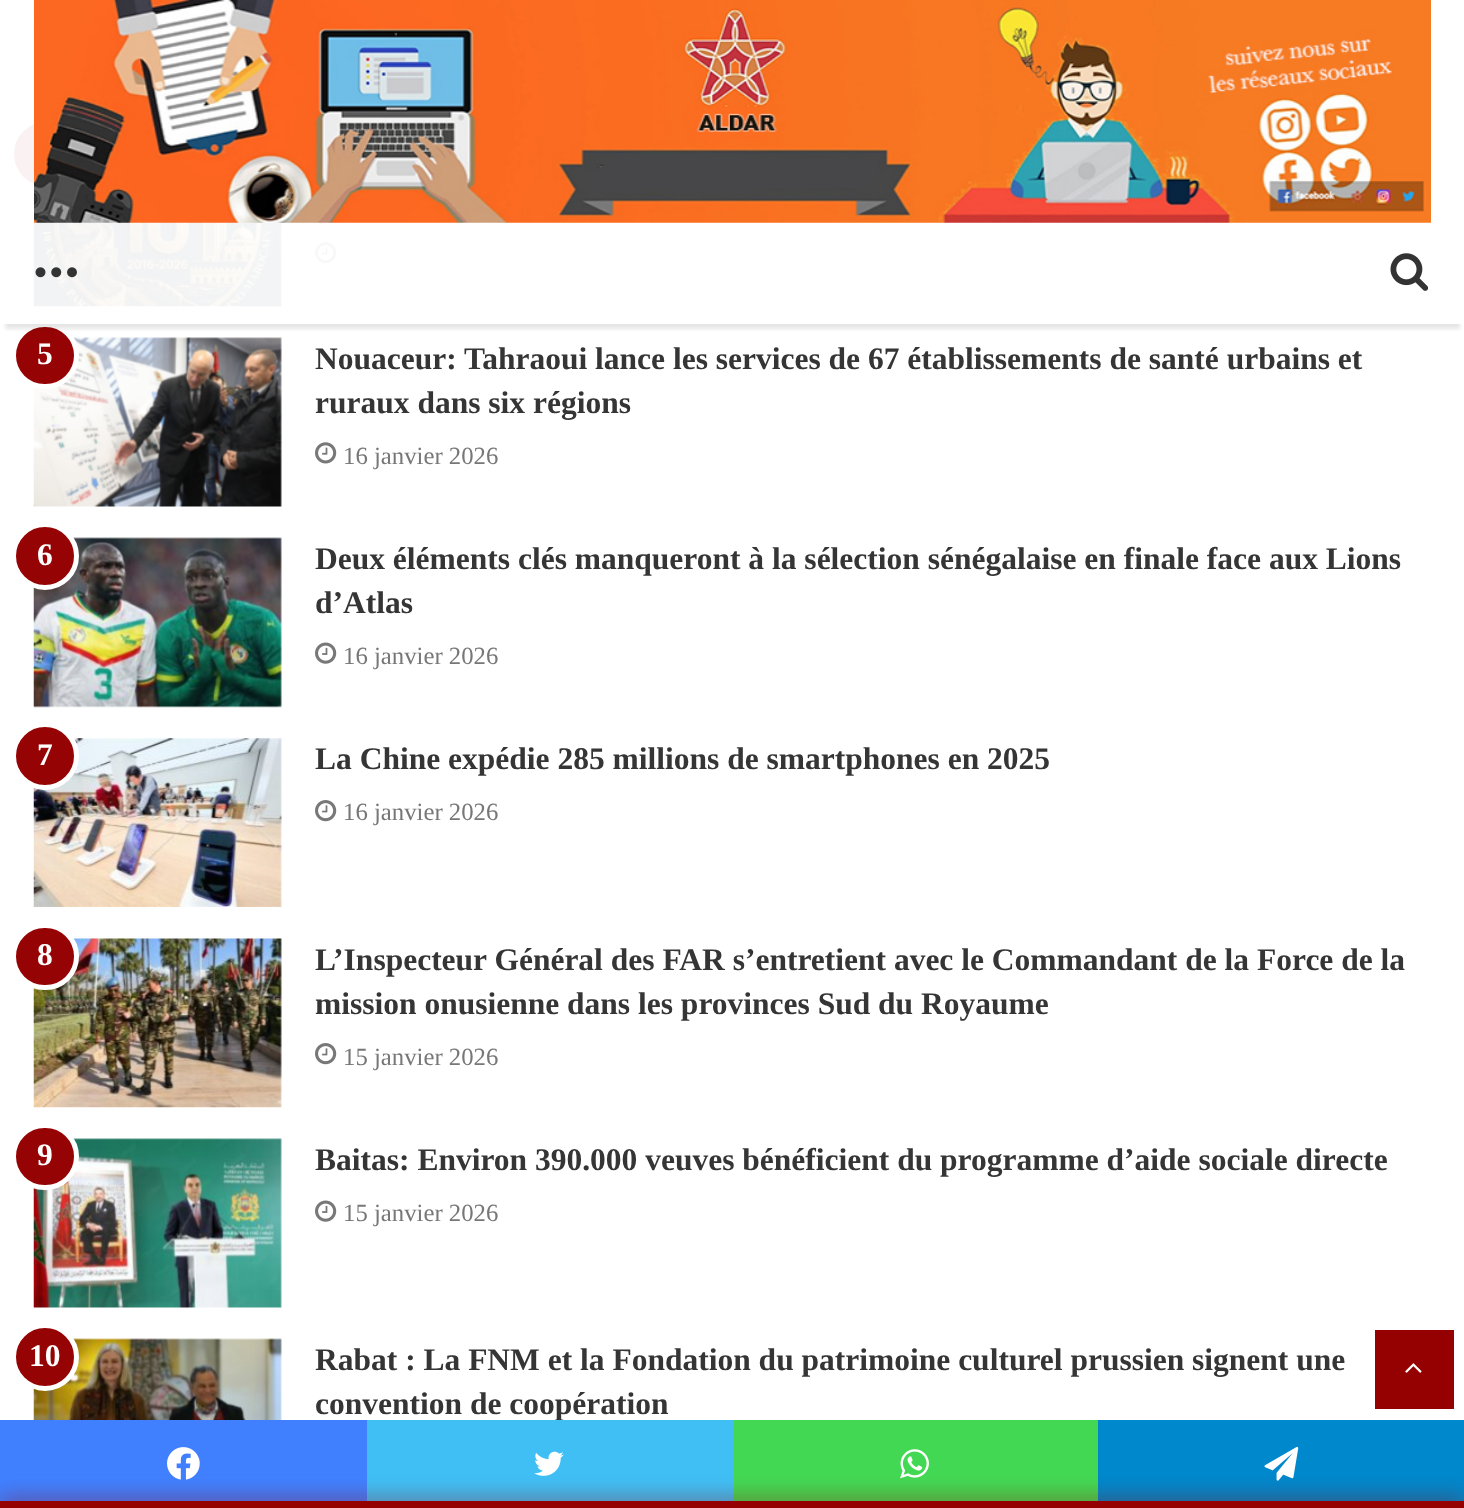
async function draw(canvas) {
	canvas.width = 1464;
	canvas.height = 1508;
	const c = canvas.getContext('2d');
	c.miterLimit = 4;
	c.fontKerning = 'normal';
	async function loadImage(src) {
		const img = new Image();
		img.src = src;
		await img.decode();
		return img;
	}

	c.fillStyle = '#fff';
	c.fillRect(0, 0, 1464, 1508);
	c.drawImage(await loadImage('img4.png'), 33, 0, 1, 106);
	c.drawImage(await loadImage('img5.png'), 33, 188, 249, 119);
	c.fillStyle = '#960304';
	c.beginPath();
	c.arc(46, 154, 34.5, 0, 2 * Math.PI);
	c.fill();
	c.strokeStyle = '#fff';
	c.lineWidth = 5;
	c.stroke();
	c.drawImage(await loadImage('img6.png'), 315, 242, 22, 22);
	c.drawImage(await loadImage('img7.png'), 33, 337, 249, 170);
	c.beginPath();
	c.roundRect(13.5, 324.5, 63, 62, 31);
	c.fill();
	c.stroke();
	c.save();
	c.beginPath();
	c.rect(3, 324, 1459, 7);
	c.clip();
	c.fillStyle = '#0000001a';
	c.filter = 'blur(2px)';
	c.beginPath();
	c.rect(5, 14, 1455, 315);
	c.fill();
	c.filter = 'none';
	c.restore();
	c.fillStyle = '#fffffff2';
	c.fillRect(9, 0, 328, 324);
	c.drawImage(await loadImage('img1.png'), 34, 0, 1397, 223);
	c.drawImage(await loadImage('img2.png'), 35, 267, 42, 11);
	c.drawImage(await loadImage('img3.png'), 1390, 253, 39, 38);
	c.font = 'bold 31.5px Liberation Serif';
	c.fillStyle = '#fff';
	c.fillText('5', 37, 364);
	c.fillStyle = '#353535';
	c.fillText('Nouaceur: Tahraoui lance les services de 67 établissements de santé urbains et', 315, 369);
	c.fillText('ruraux dans six régions', 315, 413);
	c.drawImage(await loadImage('img8.png'), 315, 442, 22, 22);
	c.font = '24.75px Liberation Serif';
	c.fillStyle = '#777';
	c.fillText('16 janvier 2026', 343, 464);
	c.drawImage(await loadImage('img9.png'), 33, 537, 249, 171);
	c.fillStyle = '#960304';
	c.beginPath();
	c.arc(45, 556, 31.5, 0, 2 * Math.PI);
	c.fill();
	c.stroke();
	c.font = 'bold 31.5px Liberation Serif';
	c.fillStyle = '#fff';
	c.fillText('6', 37, 565);
	c.fillStyle = '#353535';
	c.fillText('Deux éléments clés manqueront à la sélection sénégalaise en finale face aux Lions', 315, 569);
	c.fillText('d’Atlas', 315, 613);
	c.drawImage(await loadImage('img10.png'), 315, 642, 22, 22);
	c.font = '24.75px Liberation Serif';
	c.fillStyle = '#777';
	c.fillText('16 janvier 2026', 343, 664);
	c.drawImage(await loadImage('img11.png'), 33, 738, 249, 169);
	c.fillStyle = '#960304';
	c.beginPath();
	c.arc(45, 756, 31.5, 0, 2 * Math.PI);
	c.fill();
	c.stroke();
	c.font = 'bold 31.5px Liberation Serif';
	c.fillStyle = '#fff';
	c.fillText('7', 37, 765);
	c.fillStyle = '#353535';
	c.fillText('La Chine expédie 285 millions de smartphones en 2025', 315, 769);
	c.drawImage(await loadImage('img6.png'), 315, 800, 22, 22);
	c.font = '24.75px Liberation Serif';
	c.fillStyle = '#777';
	c.fillText('16 janvier 2026', 343, 820);
	c.drawImage(await loadImage('img12.png'), 33, 938, 249, 170);
	c.fillStyle = '#960304';
	c.beginPath();
	c.roundRect(13.5, 925.5, 63, 62, 31);
	c.fill();
	c.stroke();
	c.font = 'bold 31.5px Liberation Serif';
	c.fillStyle = '#fff';
	c.fillText('8', 37, 965);
	c.fillStyle = '#353535';
	c.fillText('L’Inspecteur Général des FAR s’entretient avec le Commandant de la Force de la', 315, 970);
	c.fillText('mission onusienne dans les provinces Sud du Royaume', 315, 1014);
	c.drawImage(await loadImage('img6.png'), 315, 1043, 22, 22);
	c.font = '24.75px Liberation Serif';
	c.fillStyle = '#777';
	c.fillText('15 janvier 2026', 343, 1065);
	c.drawImage(await loadImage('img13.png'), 33, 1138, 249, 170);
	c.fillStyle = '#960304';
	c.beginPath();
	c.roundRect(13.5, 1125.5, 63, 62, 31);
	c.fill();
	c.stroke();
	c.font = 'bold 31.5px Liberation Serif';
	c.fillStyle = '#fff';
	c.fillText('9', 37, 1165);
	c.fillStyle = '#353535';
	c.fillText('Baitas: Environ 390.000 veuves bénéficient du programme d’aide sociale directe', 315, 1170);
	c.drawImage(await loadImage('img10.png'), 315, 1200, 22, 22);
	c.font = '24.75px Liberation Serif';
	c.fillStyle = '#777';
	c.fillText('15 janvier 2026', 343, 1221);
	c.drawImage(await loadImage('img14.png'), 33, 1338, 249, 82);
	c.fillStyle = '#960304';
	c.beginPath();
	c.arc(45, 1357, 31.5, 0, 2 * Math.PI);
	c.fill();
	c.stroke();
	c.font = 'bold 31.5px Liberation Serif';
	c.fillStyle = '#fff';
	c.fillText('10', 29, 1366);
	c.fillStyle = '#353535';
	c.fillText('Rabat : La FNM et la Fondation du patrimoine culturel prussien signent une', 315, 1370);
	c.fillText('convention de coopération', 315, 1414);
	c.fillStyle = '#950001';
	c.fillRect(1375, 1330, 79, 79);
	c.drawImage(await loadImage('img15.png'), 1405, 1363, 17, 10);
	c.fillStyle = '#4080ff';
	c.fillRect(0, 1420, 367, 81);
	c.drawImage(await loadImage('img16.png'), 167, 1447, 33, 33);
	c.fillStyle = '#40bff5';
	c.fillRect(367, 1420, 367, 81);
	c.drawImage(await loadImage('img17.png'), 534, 1451, 30, 25);
	c.fillStyle = '#43d854';
	c.fillRect(734, 1420, 364, 81);
	c.drawImage(await loadImage('img18.png'), 900, 1449, 29, 30);
	c.fillStyle = '#08c';
	c.fillRect(1098, 1420, 366, 81);
	c.drawImage(await loadImage('img19.png'), 1264, 1446, 35, 35);
	c.fillStyle = '#950001b3';
	c.filter = 'blur(11px)';
	c.beginPath();
	c.rect(0, 1501, 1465, 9);
	c.fill();
	c.filter = 'none';
	c.fillStyle = '#950001';
	c.fillRect(0, 1501, 1464, 7);
}

draw(document.querySelector('canvas'));
